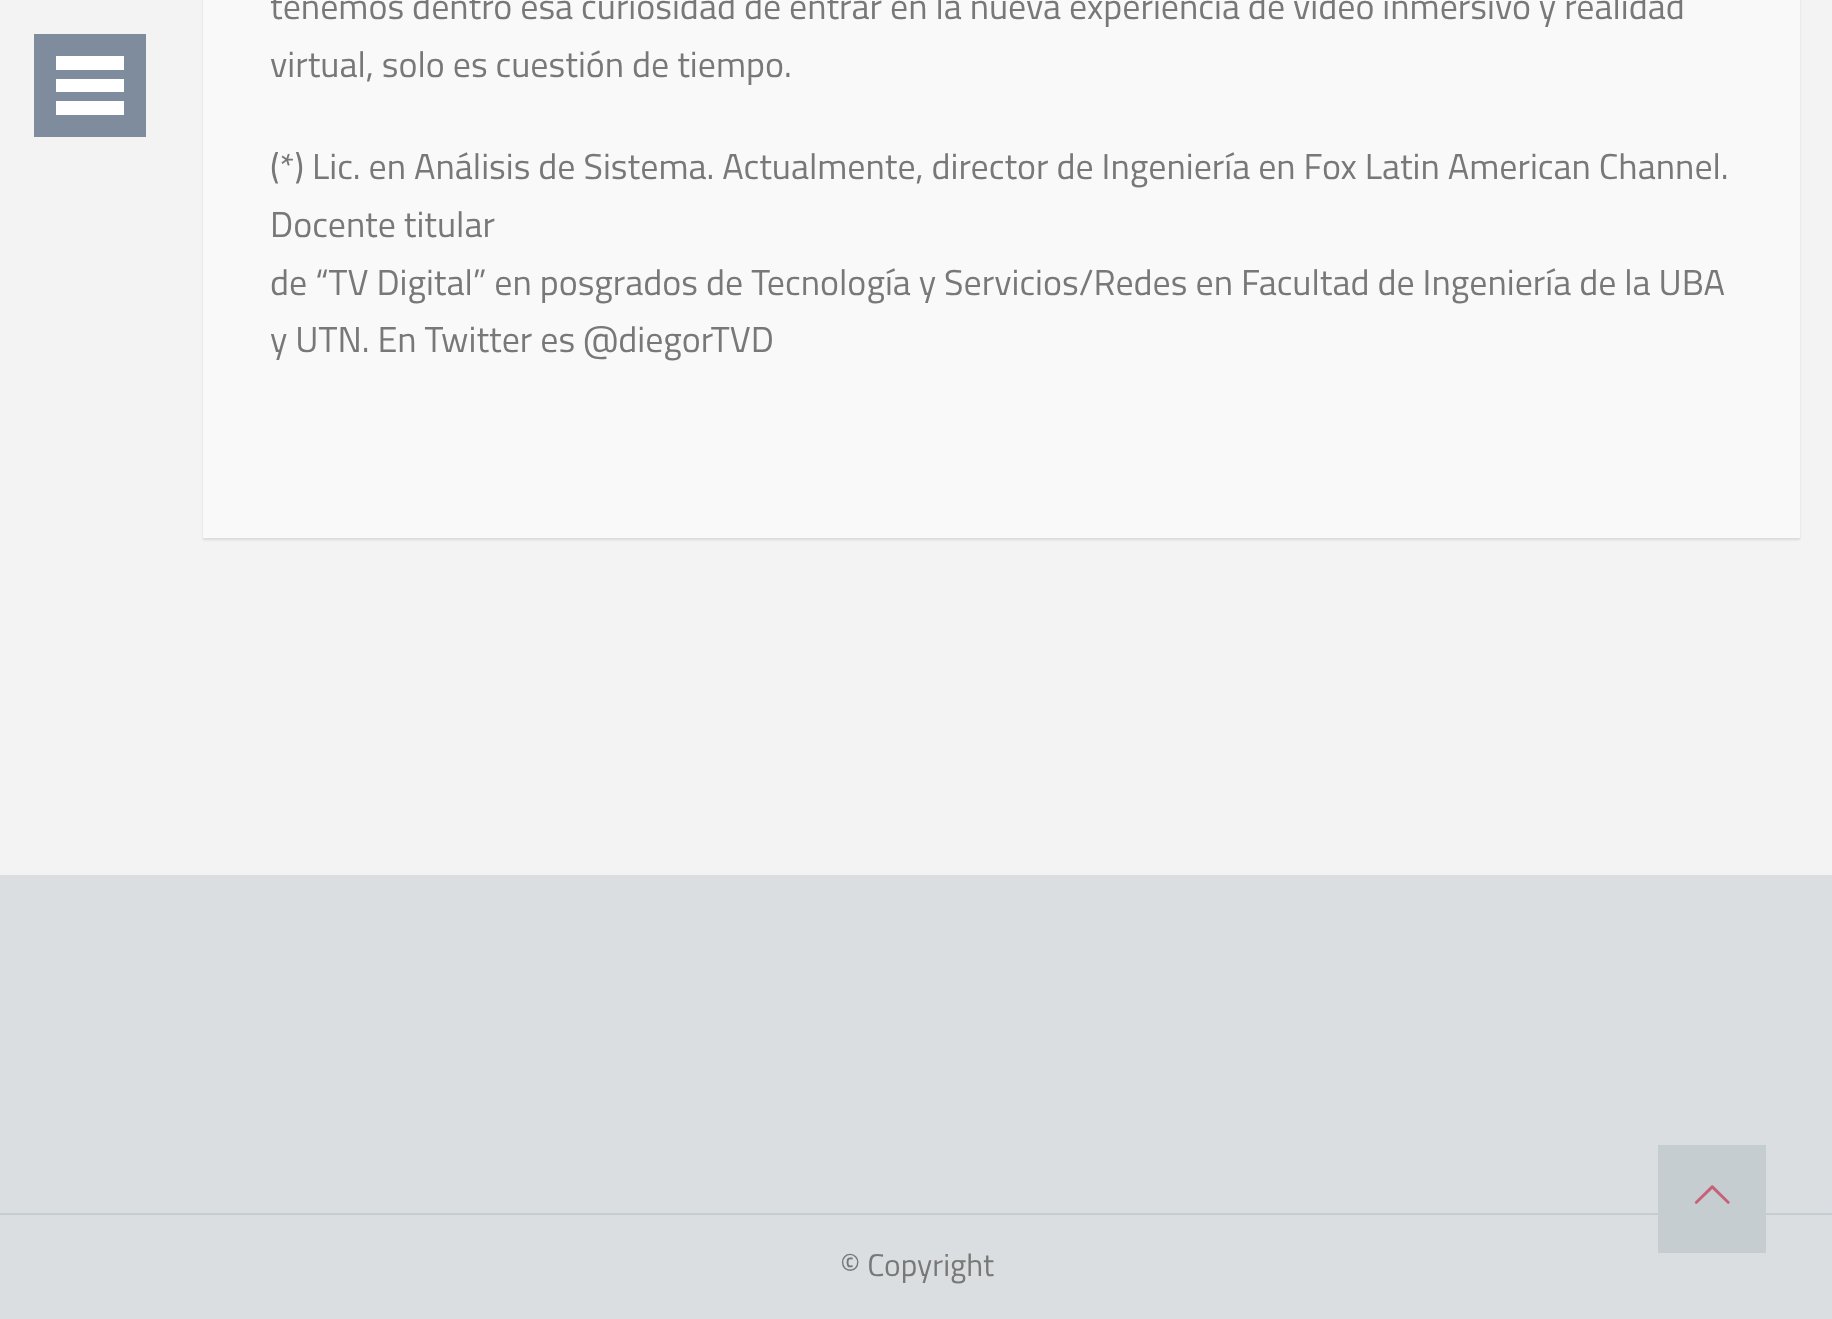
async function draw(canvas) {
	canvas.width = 1832;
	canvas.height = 1319;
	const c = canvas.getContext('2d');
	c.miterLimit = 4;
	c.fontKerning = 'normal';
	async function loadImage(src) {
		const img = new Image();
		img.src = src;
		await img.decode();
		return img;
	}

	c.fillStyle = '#f3f3f3';
	c.fillRect(0, 0, 1832, 1319);
	for (const [x, y, w, h, color] of [
		[34, 34, 112, 103, '#7f8c9d'],
		[56, 56, 68, 14, '#fff'],
		[56, 79, 68, 13, '#fff'],
		[56, 101, 68, 14, '#fff'],
	]) {
		c.fillStyle = color;
		c.fillRect(x, y, w, h);
	}
	c.fillStyle = '#0000001a';
	c.filter = 'blur(1px)';
	c.beginPath();
	c.rect(203, -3, 1597, 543);
	c.fill();
	c.filter = 'none';
	c.fillStyle = '#f9f9f9';
	c.fillRect(203, 0, 1597, 538);
	c.font = '36px Titillium Web';
	c.fillStyle = '#787878';
	for (const [text, x, y] of [
		['tenemos dentro esa curiosidad de entrar en la nueva experiencia de video inmersivo y realidad', 270, 19],
		['virtual, solo es cuestión de tiempo.', 270, 77],
		['(*) Lic. en Análisis de Sistema. Actualmente, director de Ingeniería en Fox Latin American Channel.', 270, 179],
		['Docente titular', 270, 237],
		['de “TV Digital” en posgrados de Tecnología y Servicios/Redes en Facultad de Ingeniería de la UBA', 270, 295],
		['y UTN. En Twitter es @diegorTVD', 270, 352],
	]) {
		c.fillText(text, x, y);
	}
	for (const [x, y, w, h, color] of [
		[0, 875, 1832, 338, '#dbdee0'],
		[0, 1215, 1832, 104, '#dbdee0'],
		[0, 1213, 1832, 2, '#c5cdd1'],
		[1658, 1145, 108, 108, '#c5cdd1'],
	]) {
		c.fillStyle = color;
		c.fillRect(x, y, w, h);
	}
	c.drawImage(await loadImage('img1.png'), 1694, 1185, 36, 19);
	c.font = '31.5px Titillium Web';
	c.fillStyle = '#787878';
	c.fillText('© Copyright', 840, 1276);
}

draw(document.querySelector('canvas'));
